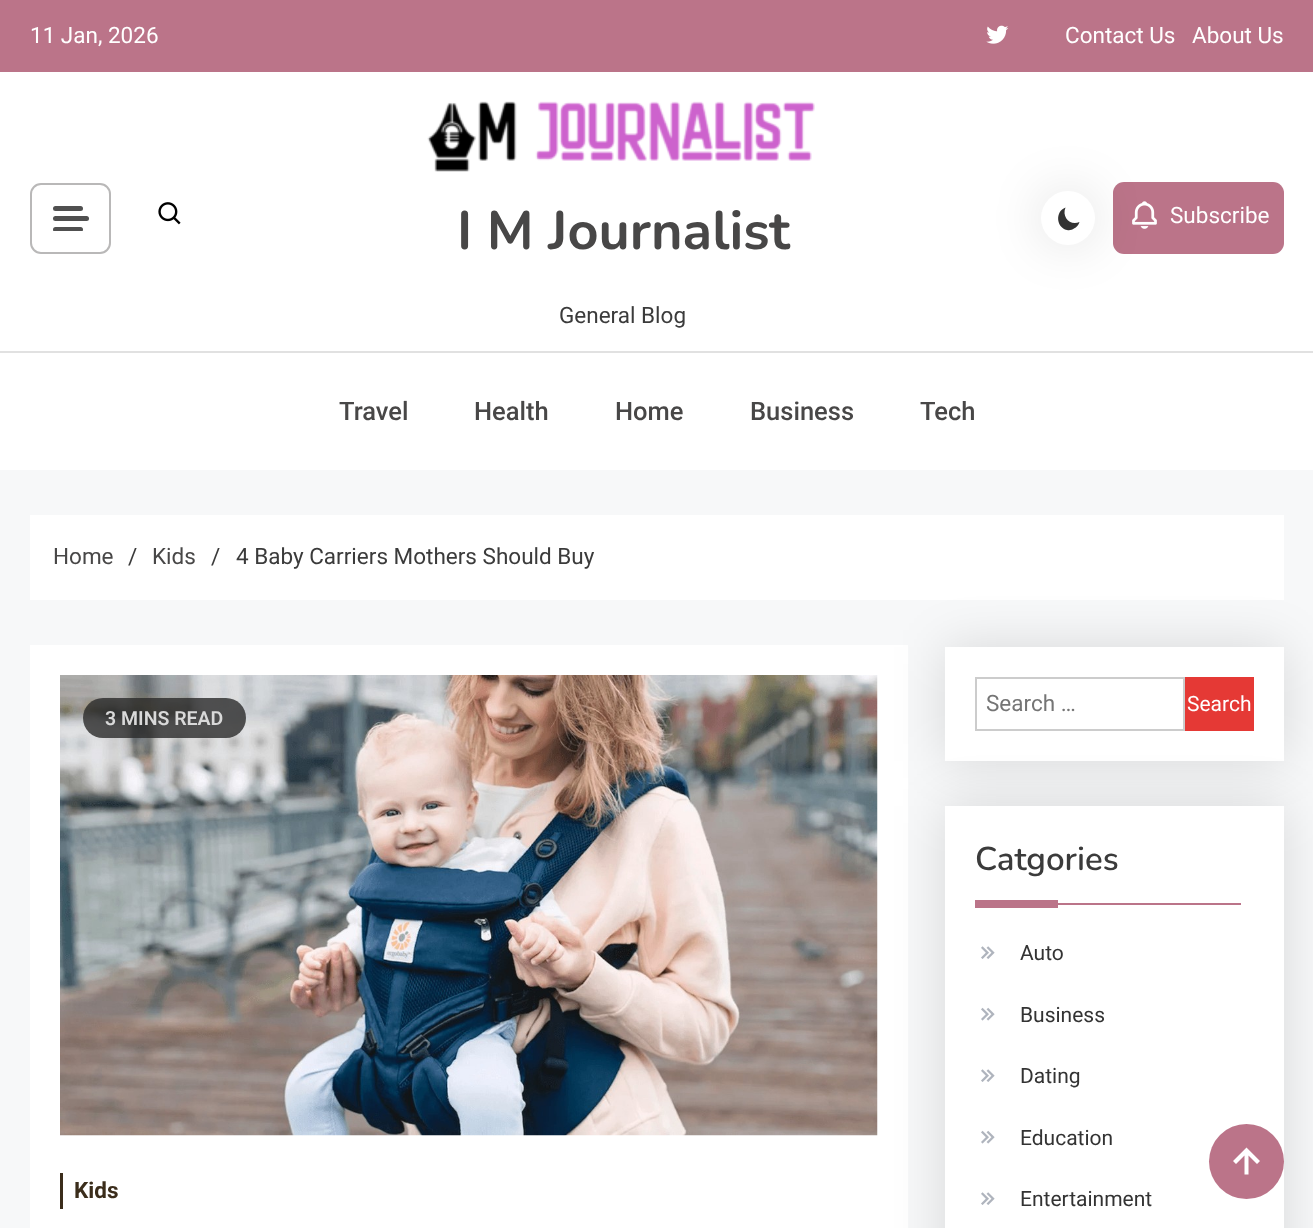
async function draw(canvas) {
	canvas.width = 1313;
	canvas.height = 1228;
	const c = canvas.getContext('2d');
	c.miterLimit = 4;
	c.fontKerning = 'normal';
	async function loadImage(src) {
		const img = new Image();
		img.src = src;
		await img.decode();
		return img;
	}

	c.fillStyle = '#f7f8f9';
	c.fillRect(0, 0, 1313, 1228);
	c.fillStyle = '#bb7489';
	c.fillRect(0, 0, 1313, 72);
	c.font = '22.5px Roboto';
	c.fillStyle = '#fff';
	c.fillText('11 Jan, 2026', 30, 43);
	c.drawImage(await loadImage('img1.png'), 986, 25, 23, 19);
	c.fillText('Contact Us', 1065, 43);
	c.fillText('About Us', 1192, 43);
	c.fillRect(0, 72, 1313, 398);
	c.beginPath();
	c.roundRect(31, 184, 79, 69, 10);
	c.strokeStyle = '#b9b8b8';
	c.lineWidth = 2;
	c.stroke();
	c.fillStyle = '#505050';
	c.beginPath();
	c.roundRect(53, 206, 30, 5, 2.5);
	c.fill();
	c.beginPath();
	c.roundRect(53, 216, 36, 5, 2.5);
	c.fill();
	c.save();
	c.beginPath();
	c.rect(53, 206, 36, 25);
	c.clip();
	c.beginPath();
	c.roundRect(53, 227, 30, 5, 2.5);
	c.fill();
	c.restore();
	c.drawImage(await loadImage('img2.png'), 158, 202, 23, 23);
	c.drawImage(await loadImage('img3.png'), 427, 101, 388, 71);
	c.font = 'bold 54px Nunito';
	c.fillStyle = '#484747';
	c.fillText('I M Journalist', 457, 249);
	c.font = '22.5px Roboto';
	c.fillStyle = '#3b3b3b';
	c.fillText('General Blog', 559, 323);
	c.fillStyle = '#bb7489';
	c.beginPath();
	c.roundRect(1113, 182, 171, 72, 11);
	c.fill();
	c.drawImage(await loadImage('img4.png'), 1132, 201, 25, 28);
	c.fillStyle = '#00000021';
	c.filter = 'blur(26px)';
	c.beginPath();
	c.roundRect(1041, 191, 54, 54, 27);
	c.fill();
	c.filter = 'none';
	c.fillStyle = '#fff';
	c.beginPath();
	c.arc(1068, 218, 27, 0, 2 * Math.PI);
	c.fill();
	c.fillStyle = '#333';
	c.beginPath();
	c.moveTo(1079.5, 222);
	c.bezierCurveTo(1070, 226, 1061.5, 217, 1065.5, 207.5);
	c.bezierCurveTo(1055, 211.5, 1056, 227.5, 1067, 230);
	c.bezierCurveTo(1069.5, 230.5, 1072, 230, 1074, 228.5);
	c.bezierCurveTo(1076.5, 227.5, 1078.5, 225, 1079.5, 222);
	c.closePath();
	c.fill();
	c.fillStyle = '#fff';
	c.fillText('Subscribe', 1170, 223);
	c.fillStyle = '#e1e1e1';
	c.fillRect(0, 351, 1313, 2);
	c.font = '500 25.5px Roboto';
	c.fillStyle = '#484747';
	for (const [text, x, y] of [
		['Travel', 339, 420],
		['Health', 474, 420],
		['Home', 615, 420],
		['Business', 750, 420],
		['Tech', 920, 420],
	]) {
		c.fillText(text, x, y);
	}
	c.fillStyle = '#fff';
	c.fillRect(30, 515, 1254, 85);
	c.font = '22.5px Roboto';
	c.fillStyle = '#484747';
	c.fillText('Home', 53, 564);
	c.fillStyle = '#3b3b3b';
	c.fillText('/', 128, 564);
	c.fillStyle = '#484747';
	c.fillText('Kids', 152, 564);
	c.fillStyle = '#3b3b3b';
	c.fillText('/', 211, 564);
	c.fillText('4 Baby Carriers Mothers Should Buy', 236, 564);
	c.fillStyle = '#fff';
	c.fillRect(30, 645, 878, 583);
	c.drawImage(await loadImage('img5.png'), 60, 675, 818, 461);
	c.fillStyle = '#2b2b2bcc';
	c.beginPath();
	c.roundRect(83, 698, 163, 40, 20);
	c.fill();
	c.font = '600 19.5px Roboto';
	c.fillStyle = '#d9d9d9';
	c.fillText('3 MINS READ', 105, 725);
	c.font = 'bold 22.5px Roboto';
	c.fillStyle = '#3b2d1b';
	c.fillText('Kids', 74, 1198);
	c.fillRect(60, 1173, 3, 36);
	c.fillStyle = '#00000021';
	c.filter = 'blur(26px)';
	c.beginPath();
	c.rect(945, 647, 339, 114);
	c.fill();
	c.filter = 'none';
	c.fillStyle = '#fff';
	c.fillRect(945, 647, 339, 114);
	c.fillStyle = '#00000021';
	c.filter = 'blur(26px)';
	c.beginPath();
	c.rect(945, 806, 339, 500);
	c.fill();
	c.filter = 'none';
	c.strokeStyle = '#ccc';
	c.strokeRect(976, 678, 208, 52);
	c.font = '22.5px Roboto';
	c.fillStyle = '#757575';
	c.fillText('Search …', 986, 711);
	c.fillStyle = '#e53935';
	c.fillRect(1185, 677, 69, 54);
	c.font = '21px Roboto';
	c.fillStyle = '#fff';
	c.fillText('Search', 1187, 711);
	c.fillRect(945, 806, 339, 422);
	c.font = '600 33px Nunito';
	c.fillStyle = '#3b3b3b';
	c.fillText('Catgories', 975, 870);
	c.fillStyle = '#bb7489';
	c.fillRect(975, 900, 83, 8);
	c.fillRect(1058, 903, 183, 2);
	c.drawImage(await loadImage('img6.png'), 981, 946, 14, 13);
	c.font = '21px Roboto';
	c.fillStyle = '#333';
	c.fillText('Auto', 1020, 960);
	c.drawImage(await loadImage('img7.png'), 981, 1007, 14, 14);
	c.fillText('Business', 1020, 1022);
	c.drawImage(await loadImage('img6.png'), 981, 1069, 14, 13);
	c.fillText('Dating', 1020, 1083);
	c.drawImage(await loadImage('img7.png'), 981, 1130, 14, 14);
	c.fillText('Education', 1020, 1145);
	c.drawImage(await loadImage('img6.png'), 981, 1192, 14, 13);
	c.fillText('Entertainment', 1020, 1206);
	c.fillStyle = '#bb7489';
	c.beginPath();
	c.arc(1246.5, 1161.5, 37.5, 0, 2 * Math.PI);
	c.fill();
	c.fillStyle = '#fff';
	c.beginPath();
	c.moveTo(1244.5, 1155.5);
	c.lineTo(1244.5, 1174.5);
	c.lineTo(1248.5, 1174.5);
	c.lineTo(1248.5, 1155.5);
	c.lineTo(1257, 1164);
	c.lineTo(1260, 1161);
	c.lineTo(1246.5, 1147.5);
	c.lineTo(1233, 1161);
	c.lineTo(1236, 1164);
	c.closePath();
	c.fill();
}

draw(document.querySelector('canvas'));
